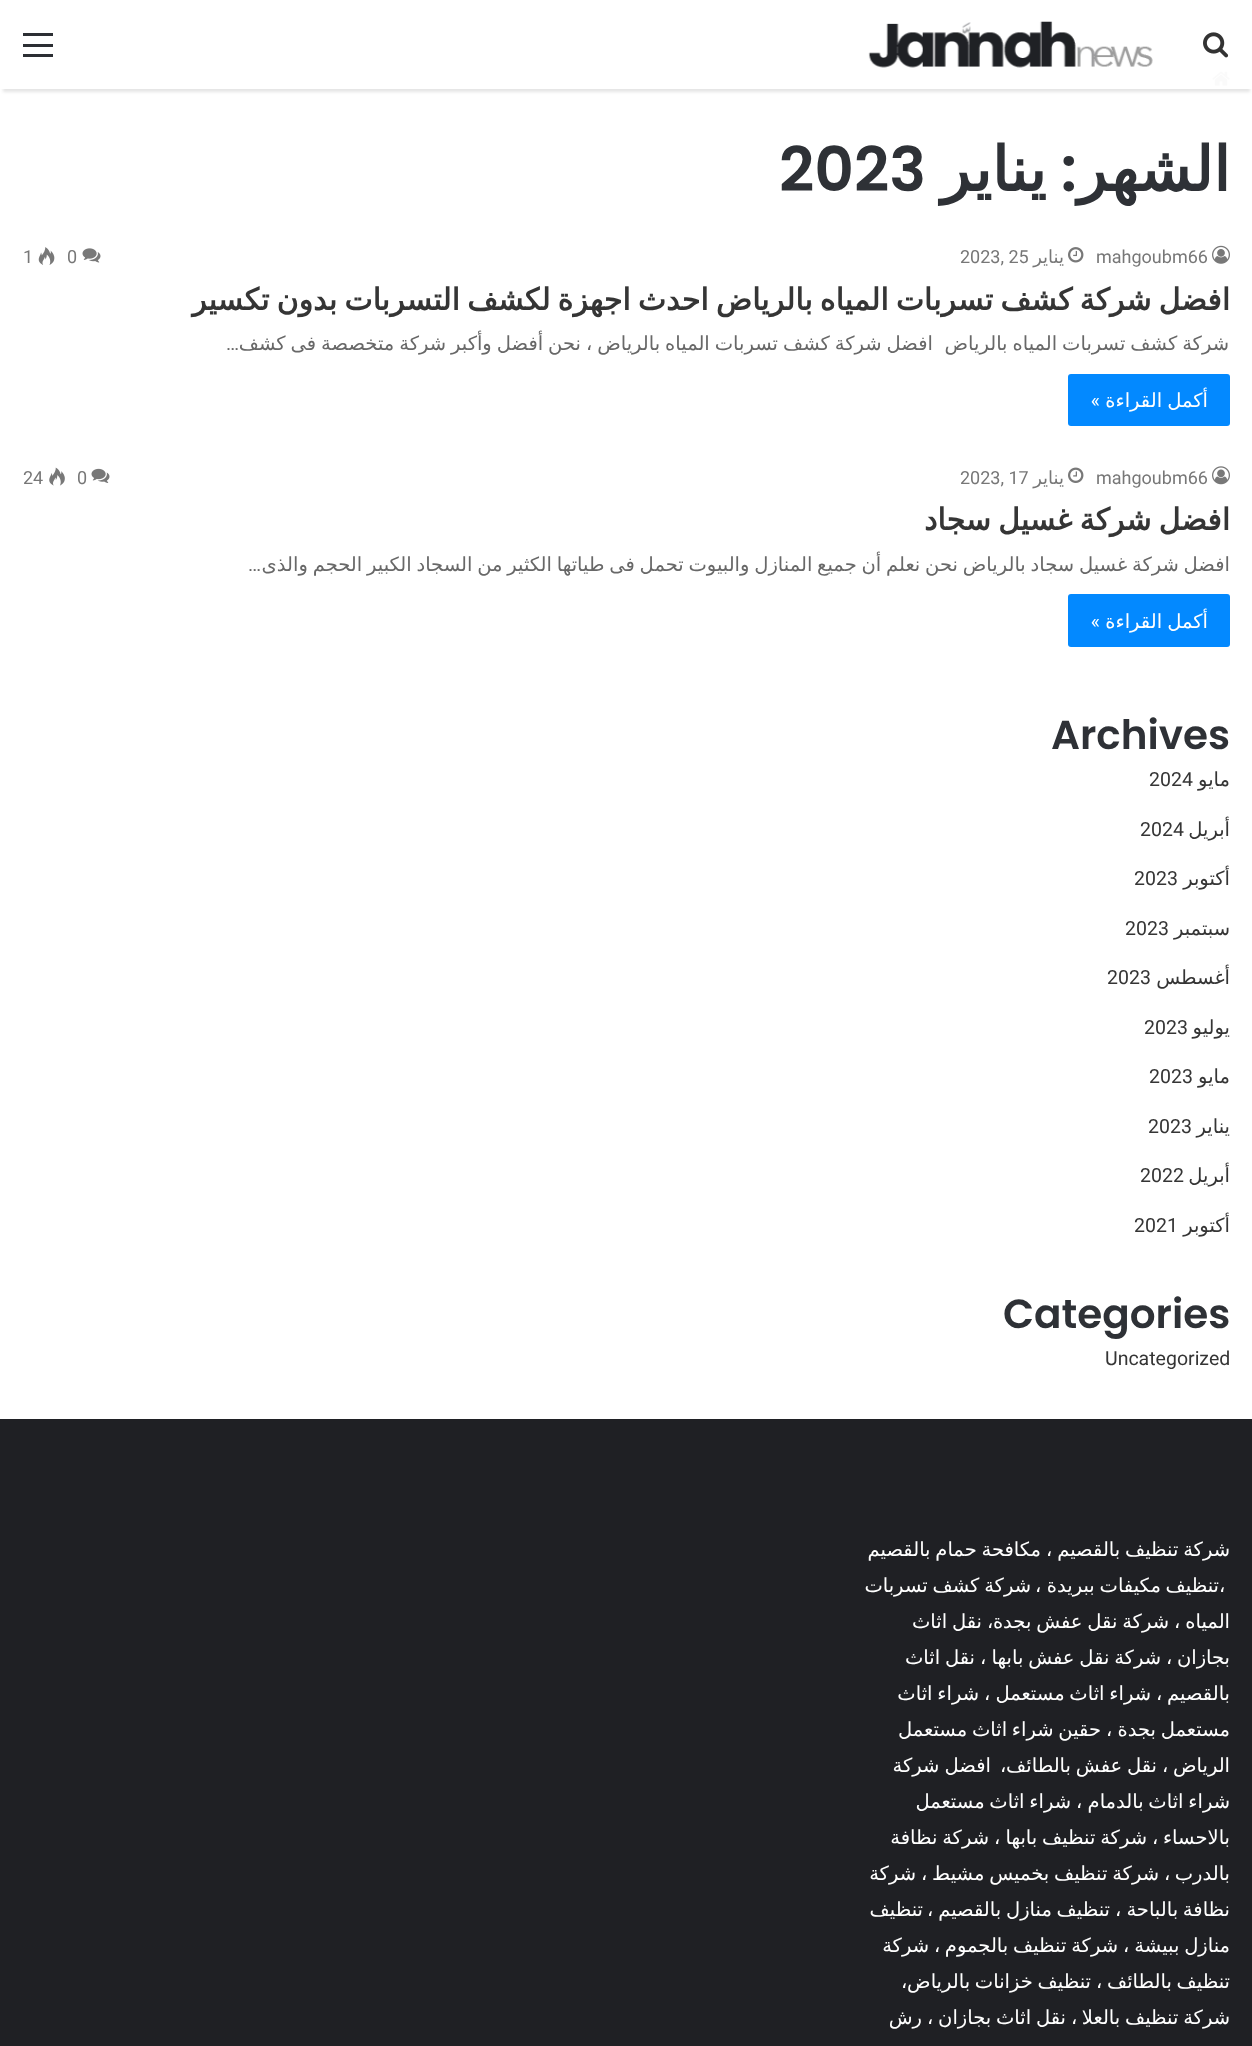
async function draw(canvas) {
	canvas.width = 1252;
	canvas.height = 2046;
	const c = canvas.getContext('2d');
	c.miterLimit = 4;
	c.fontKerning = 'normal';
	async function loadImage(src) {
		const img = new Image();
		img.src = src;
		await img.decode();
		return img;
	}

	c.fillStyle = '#fff';
	c.fillRect(0, 0, 1252, 2046);
	c.drawImage(await loadImage('img3.png'), 1212, 71, 18, 15);
	c.save();
	c.beginPath();
	c.moveTo(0, 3);
	c.lineTo(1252, 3);
	c.lineTo(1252, 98);
	c.lineTo(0, 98);
	c.closePath();
	c.moveTo(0, 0);
	c.lineTo(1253, 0);
	c.lineTo(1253, 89);
	c.lineTo(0, 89);
	c.closePath();
	c.clip('evenodd');
	c.fillStyle = '#0000001a';
	c.filter = 'blur(1.5px)';
	c.beginPath();
	c.rect(3, 9, 1247, 83);
	c.fill();
	c.filter = 'none';
	c.restore();
	c.fillStyle = '#fffffff2';
	c.fillRect(2, 71, 1249, 18);
	c.drawImage(await loadImage('img1.png'), 1203, 32, 26, 26);
	c.drawImage(await loadImage('img2.png'), 868, 21, 285, 47);
	for (const [x, y, w, h, color] of [
		[23, 44, 30, 3, '#2c2f34'],
		[23, 33, 30, 3, '#2c2f34'],
		[23, 54, 30, 3, '#2c2f34'],
	]) {
		c.fillStyle = color;
		c.fillRect(x, y, w, h);
	}
	c.direction = 'rtl';
	c.font = '600 61.5px Poppins';
	c.fillStyle = '#2e3136';
	c.fillText(':', 1077, 191);
	c.font = 'bold 61.5px DejaVu Sans';
	c.fillText('الشهر', 1230, 191);
	c.fillText('يناير', 1046, 191);
	c.direction = 'ltr';
	c.font = '600 61.5px Poppins';
	c.fillText('2023', 779, 191);
	c.drawImage(await loadImage('img4.png'), 1212, 245, 18, 19);
	c.font = '18px Roboto';
	c.fillStyle = '#777';
	c.fillText('mahgoubm66', 1096, 263);
	c.drawImage(await loadImage('img5.png'), 1068, 247, 16, 16);
	c.direction = 'rtl';
	c.font = '18px DejaVu Sans';
	c.fillText('يناير', 1064, 263);
	c.direction = 'ltr';
	c.font = '18px Roboto';
	c.fillText('2023, 25', 960, 263);
	c.drawImage(await loadImage('img6.png'), 82, 248, 19, 15);
	c.fillText('0', 67, 263);
	c.drawImage(await loadImage('img7.png'), 38, 247, 17, 18);
	c.fillText('1', 23, 263);
	c.wordSpacing = '-2.4px';
	c.direction = 'rtl';
	c.font = 'bold 30px DejaVu Sans';
	c.fillStyle = '#353535';
	c.fillText('افضل شركة كشف تسربات المياه بالرياض احدث اجهزة لكشف التسربات بدون تكسير', 1230, 310);
	c.wordSpacing = '-1.25px';
	c.font = '19.5px DejaVu Sans';
	c.fillStyle = '#686868';
	c.fillText('شركة كشف تسربات المياه بالرياض', 1229, 350);
	c.fillText('افضل شركة كشف تسربات المياه بالرياض ، نحن أفضل وأكبر شركة متخصصة فى كشف', 933, 350);
	c.wordSpacing = '0px';
	c.font = '19.5px Roboto';
	c.fillText('…', 239, 350);
	c.fillStyle = '#0389ff';
	c.beginPath();
	c.roundRect(1068, 374, 162, 52, 3);
	c.fill();
	c.wordSpacing = '-1px';
	c.font = '19.5px DejaVu Sans';
	c.fillStyle = '#fff';
	c.fillText('أكمل القراءة', 1208, 407);
	c.wordSpacing = '0px';
	c.font = '19.5px Roboto';
	c.fillText('»', 1100, 407);
	c.drawImage(await loadImage('img8.png'), 1212, 466, 18, 19);
	c.direction = 'ltr';
	c.font = '18px Roboto';
	c.fillStyle = '#777';
	c.fillText('mahgoubm66', 1096, 484);
	c.drawImage(await loadImage('img9.png'), 1068, 467, 16, 16);
	c.direction = 'rtl';
	c.font = '18px DejaVu Sans';
	c.fillText('يناير', 1064, 484);
	c.direction = 'ltr';
	c.font = '18px Roboto';
	c.fillText('2023, 17', 960, 484);
	c.drawImage(await loadImage('img10.png'), 91, 468, 19, 15);
	c.fillText('0', 77, 484);
	c.drawImage(await loadImage('img11.png'), 49, 467, 16, 19);
	c.fillText('24', 23, 484);
	c.wordSpacing = '-2.4px';
	c.direction = 'rtl';
	c.font = 'bold 30px DejaVu Sans';
	c.fillStyle = '#353535';
	c.fillText('افضل شركة غسيل سجاد', 1230, 530);
	c.wordSpacing = '-1.4px';
	c.font = '19.5px DejaVu Sans';
	c.fillStyle = '#686868';
	c.fillText('افضل شركة غسيل سجاد بالرياض نحن نعلم أن جميع المنازل والبيوت تحمل فى طياتها الكثير من السجاد الكبير الحجم والذى', 1230, 571);
	c.wordSpacing = '0px';
	c.font = '19.5px Roboto';
	c.fillText('…', 261, 571);
	c.fillStyle = '#0389ff';
	c.beginPath();
	c.roundRect(1068, 594, 162, 53, 3);
	c.fill();
	c.wordSpacing = '-1px';
	c.font = '19.5px DejaVu Sans';
	c.fillStyle = '#fff';
	c.fillText('أكمل القراءة', 1208, 628);
	c.wordSpacing = '0px';
	c.font = '19.5px Roboto';
	c.fillText('»', 1100, 628);
	c.direction = 'ltr';
	c.font = '600 40.5px Poppins';
	c.fillStyle = '#2e3136';
	c.fillText('Archives', 1051, 749);
	c.direction = 'rtl';
	c.font = '19.5px DejaVu Sans';
	c.fillStyle = '#353535';
	c.fillText('مايو', 1230, 786);
	c.direction = 'ltr';
	c.font = '19.5px Roboto';
	c.fillText('2024', 1149, 786);
	c.direction = 'rtl';
	c.font = '19.5px DejaVu Sans';
	c.fillText('أبريل', 1230, 836);
	c.direction = 'ltr';
	c.font = '19.5px Roboto';
	c.fillText('2024', 1140, 836);
	c.direction = 'rtl';
	c.font = '19.5px DejaVu Sans';
	c.fillText('أكتوبر', 1230, 885);
	c.direction = 'ltr';
	c.font = '19.5px Roboto';
	c.fillText('2023', 1134, 885);
	c.direction = 'rtl';
	c.font = '19.5px DejaVu Sans';
	c.fillText('سبتمبر', 1230, 935);
	c.direction = 'ltr';
	c.font = '19.5px Roboto';
	c.fillText('2023', 1125, 935);
	c.direction = 'rtl';
	c.font = '19.5px DejaVu Sans';
	c.fillText('أغسطس', 1230, 984);
	c.direction = 'ltr';
	c.font = '19.5px Roboto';
	c.fillText('2023', 1107, 984);
	c.direction = 'rtl';
	c.font = '19.5px DejaVu Sans';
	c.fillText('يوليو', 1230, 1034);
	c.direction = 'ltr';
	c.font = '19.5px Roboto';
	c.fillText('2023', 1144, 1034);
	c.direction = 'rtl';
	c.font = '19.5px DejaVu Sans';
	c.fillText('مايو', 1230, 1083);
	c.direction = 'ltr';
	c.font = '19.5px Roboto';
	c.fillText('2023', 1149, 1083);
	c.direction = 'rtl';
	c.font = '19.5px DejaVu Sans';
	c.fillText('يناير', 1230, 1133);
	c.direction = 'ltr';
	c.font = '19.5px Roboto';
	c.fillText('2023', 1148, 1133);
	c.direction = 'rtl';
	c.font = '19.5px DejaVu Sans';
	c.fillText('أبريل', 1230, 1182);
	c.direction = 'ltr';
	c.font = '19.5px Roboto';
	c.fillText('2022', 1140, 1182);
	c.direction = 'rtl';
	c.font = '19.5px DejaVu Sans';
	c.fillText('أكتوبر', 1230, 1232);
	c.direction = 'ltr';
	c.font = '19.5px Roboto';
	c.fillText('2021', 1134, 1232);
	c.font = '600 40.5px Poppins';
	c.fillStyle = '#2e3136';
	c.fillText('Categories', 1003, 1328);
	c.font = '19.5px Roboto';
	c.fillStyle = '#353535';
	c.fillText('Uncategorized', 1105, 1365);
	c.fillStyle = '#1f2024';
	c.fillRect(0, 1419, 1252, 627);
	c.wordSpacing = '-1.4px';
	c.direction = 'rtl';
	c.font = '19.5px DejaVu Sans';
	c.fillStyle = '#fff';
	c.fillText('شركة تنظيف بالقصيم', 1230, 1556);
	c.wordSpacing = '0px';
	c.direction = 'ltr';
	c.fillText('،', 1046, 1556);
	c.wordSpacing = '-1.4px';
	c.direction = 'rtl';
	c.fillText('مكافحة حمام بالقصيم', 1041, 1556);
	c.wordSpacing = '0px';
	c.direction = 'ltr';
	c.fillText('،', 1219, 1592);
	c.wordSpacing = '-1.4px';
	c.direction = 'rtl';
	c.fillText('تنظيف مكيفات ببريدة', 1219, 1592);
	c.wordSpacing = '0px';
	c.direction = 'ltr';
	c.fillText('،', 1035, 1592);
	c.wordSpacing = '-1.4px';
	c.direction = 'rtl';
	c.fillText('شركة كشف تسربات', 1031, 1592);
	c.wordSpacing = '0px';
	c.fillText('المياه', 1230, 1628);
	c.direction = 'ltr';
	c.fillText('،', 1174, 1628);
	c.wordSpacing = '-1.4px';
	c.direction = 'rtl';
	c.fillText('شركة نقل عفش بجدة', 1169, 1628);
	c.wordSpacing = '0px';
	c.direction = 'ltr';
	c.fillText('،', 987, 1628);
	c.wordSpacing = '-1.4px';
	c.direction = 'rtl';
	c.fillText('نقل اثاث', 982, 1628);
	c.wordSpacing = '0px';
	c.fillText('بجازان', 1230, 1664);
	c.direction = 'ltr';
	c.fillText('،', 1166, 1664);
	c.wordSpacing = '-1.4px';
	c.direction = 'rtl';
	c.fillText('شركة نقل عفش بابها', 1161, 1664);
	c.wordSpacing = '0px';
	c.direction = 'ltr';
	c.fillText('،', 980, 1664);
	c.wordSpacing = '-1.4px';
	c.direction = 'rtl';
	c.fillText('نقل اثاث', 975, 1664);
	c.wordSpacing = '0px';
	c.fillText('بالقصيم', 1230, 1700);
	c.direction = 'ltr';
	c.fillText('،', 1156, 1700);
	c.wordSpacing = '-1.4px';
	c.direction = 'rtl';
	c.fillText('شراء اثاث مستعمل', 1151, 1700);
	c.wordSpacing = '0px';
	c.direction = 'ltr';
	c.fillText('،', 984, 1700);
	c.wordSpacing = '-1.4px';
	c.direction = 'rtl';
	c.fillText('شراء اثاث', 979, 1700);
	c.fillText('مستعمل بجدة', 1230, 1736);
	c.wordSpacing = '0px';
	c.direction = 'ltr';
	c.fillText('،', 1106, 1736);
	c.wordSpacing = '-1.4px';
	c.direction = 'rtl';
	c.fillText('حقين شراء اثاث مستعمل', 1101, 1736);
	c.wordSpacing = '0px';
	c.fillText('الرياض', 1230, 1772);
	c.direction = 'ltr';
	c.fillText('،', 1162, 1772);
	c.wordSpacing = '-1.4px';
	c.direction = 'rtl';
	c.fillText('نقل عفش بالطائف', 1157, 1772);
	c.wordSpacing = '0px';
	c.direction = 'ltr';
	c.fillText('،', 1000, 1772);
	c.wordSpacing = '-1px';
	c.direction = 'rtl';
	c.fillText('افضل شركة', 991, 1772);
	c.wordSpacing = '-1.4px';
	c.fillText('شراء اثاث بالدمام', 1230, 1808);
	c.wordSpacing = '0px';
	c.direction = 'ltr';
	c.fillText('،', 1076, 1808);
	c.wordSpacing = '-1.4px';
	c.direction = 'rtl';
	c.fillText('شراء اثاث مستعمل', 1071, 1808);
	c.wordSpacing = '0px';
	c.fillText('بالاحساء', 1230, 1844);
	c.direction = 'ltr';
	c.fillText('،', 1152, 1844);
	c.wordSpacing = '-1.4px';
	c.direction = 'rtl';
	c.fillText('شركة تنظيف بابها', 1147, 1844);
	c.wordSpacing = '0px';
	c.direction = 'ltr';
	c.fillText('،', 994, 1844);
	c.wordSpacing = '-1.4px';
	c.direction = 'rtl';
	c.fillText('شركة نظافة', 989, 1844);
	c.wordSpacing = '0px';
	c.fillText('بالدرب', 1230, 1880);
	c.direction = 'ltr';
	c.fillText('،', 1164, 1880);
	c.wordSpacing = '-1.4px';
	c.direction = 'rtl';
	c.fillText('شركة تنظيف بخميس مشيط', 1159, 1880);
	c.wordSpacing = '0px';
	c.direction = 'ltr';
	c.fillText('،', 921, 1880);
	c.direction = 'rtl';
	c.fillText('شركة', 916, 1880);
	c.wordSpacing = '-1.4px';
	c.fillText('نظافة بالباحة', 1230, 1916);
	c.wordSpacing = '0px';
	c.direction = 'ltr';
	c.fillText('،', 1115, 1916);
	c.wordSpacing = '-1.4px';
	c.direction = 'rtl';
	c.fillText('تنظيف منازل بالقصيم', 1110, 1916);
	c.wordSpacing = '0px';
	c.direction = 'ltr';
	c.fillText('،', 927, 1916);
	c.direction = 'rtl';
	c.fillText('تنظيف', 923, 1916);
	c.wordSpacing = '-1.4px';
	c.fillText('منازل ببيشة', 1230, 1952);
	c.wordSpacing = '0px';
	c.direction = 'ltr';
	c.fillText('،', 1123, 1952);
	c.wordSpacing = '-1.4px';
	c.direction = 'rtl';
	c.fillText('شركة تنظيف بالجموم', 1118, 1952);
	c.wordSpacing = '0px';
	c.direction = 'ltr';
	c.fillText('،', 934, 1952);
	c.direction = 'rtl';
	c.fillText('شركة', 929, 1952);
	c.wordSpacing = '-1.4px';
	c.fillText('تنظيف بالطائف', 1230, 1988);
	c.wordSpacing = '0px';
	c.direction = 'ltr';
	c.fillText('،', 1096, 1988);
	c.wordSpacing = '-1.4px';
	c.direction = 'rtl';
	c.fillText('تنظيف خزانات بالرياض', 1091, 1988);
	c.wordSpacing = '0px';
	c.direction = 'ltr';
	c.fillText('،', 901, 1988);
	c.wordSpacing = '-1.4px';
	c.direction = 'rtl';
	c.fillText('شركة تنظيف بالعلا', 1230, 2024);
	c.wordSpacing = '0px';
	c.direction = 'ltr';
	c.fillText('،', 1071, 2024);
	c.wordSpacing = '-1.4px';
	c.direction = 'rtl';
	c.fillText('نقل اثاث بجازان', 1066, 2024);
	c.wordSpacing = '0px';
	c.direction = 'ltr';
	c.fillText('،', 927, 2024);
	c.direction = 'rtl';
	c.fillText('رش', 922, 2024);
}

draw(document.querySelector('canvas'));
